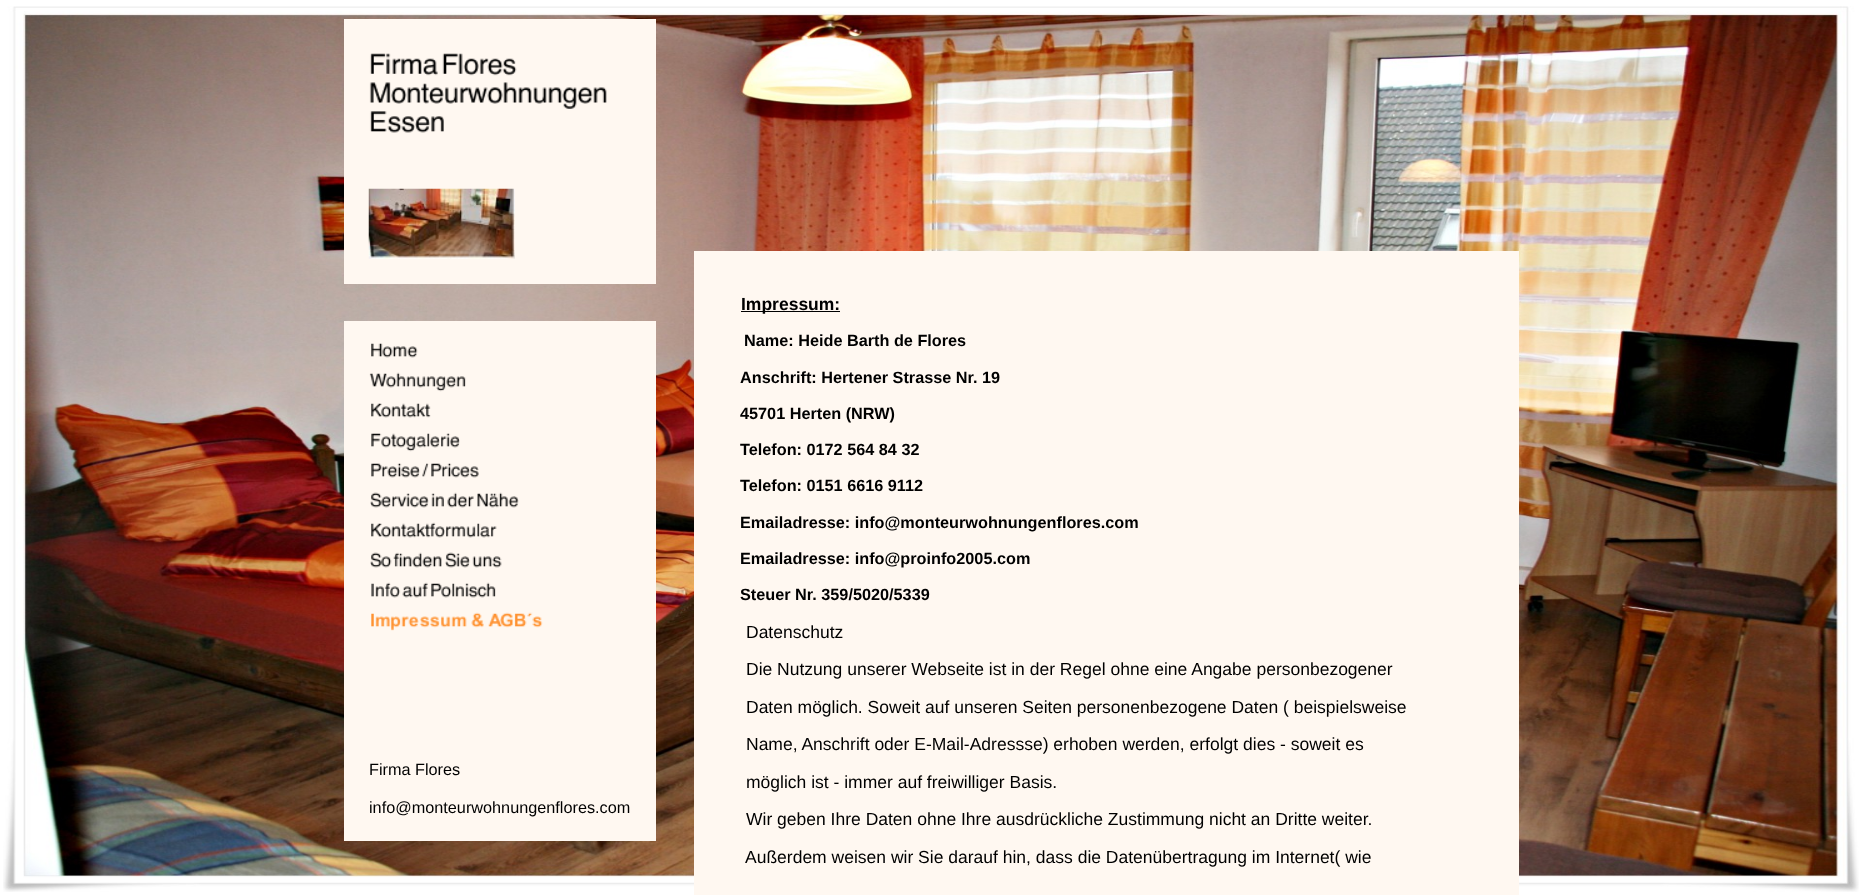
async function draw(canvas) {
	canvas.width = 1862;
	canvas.height = 895;
	const c = canvas.getContext('2d');
	c.miterLimit = 4;
	c.fontKerning = 'normal';
	async function loadImage(src) {
		const img = new Image();
		img.src = src;
		await img.decode();
		return img;
	}

	c.fillStyle = '#fff';
	c.fillRect(0, 0, 1862, 895);
	c.drawImage(await loadImage('img1.png'), 3, 6, 1856, 886);
	c.fillStyle = '#fff8f1';
	c.fillRect(344, 19, 312, 265);
	c.drawImage(await loadImage('img2.png'), 369, 53, 238, 80);
	c.drawImage(await loadImage('img3.png'), 368, 188, 147, 71);
	c.fillRect(344, 321, 312, 520);
	c.drawImage(await loadImage('img4.png'), 371, 343, 47, 15);
	c.drawImage(await loadImage('img5.png'), 369, 372, 97, 20);
	c.drawImage(await loadImage('img6.png'), 371, 403, 60, 15);
	c.drawImage(await loadImage('img7.png'), 371, 433, 89, 19);
	c.drawImage(await loadImage('img8.png'), 371, 463, 108, 15);
	c.drawImage(await loadImage('img9.png'), 370, 492, 149, 16);
	c.drawImage(await loadImage('img10.png'), 371, 522, 126, 16);
	c.drawImage(await loadImage('img11.png'), 370, 552, 132, 16);
	c.drawImage(await loadImage('img12.png'), 371, 582, 125, 16);
	c.drawImage(await loadImage('img13.png'), 371, 612, 172, 19);
	c.font = '16.25px Liberation Sans';
	c.fillStyle = '#000';
	c.fillText('Firma Flores', 369, 775);
	c.fillText('info@monteurwohnungenflores.com', 369, 813);
	c.fillStyle = '#fff8f1';
	c.fillRect(694, 251, 825, 644);
	c.fillStyle = '#000';
	c.fillRect(741, 311, 99, 1);
	c.font = 'bold 17.5px Liberation Sans';
	c.fillText('Impressum:', 741, 310);
	c.font = 'bold 16.25px Liberation Sans';
	for (const [text, x, y] of [
		['Name: Heide Barth de Flores', 744, 346],
		['Anschrift: Hertener Strasse Nr. 19', 740, 383],
		['45701 Herten (NRW)', 740, 419],
		['Telefon: 0172 564 84 32', 740, 455],
		['Telefon: 0151 6616 9112', 740, 491],
		['Emailadresse: info@monteurwohnungenflores.com', 740, 528],
		['Emailadresse: info@proinfo2005.com', 740, 564],
		['Steuer Nr. 359/5020/5339', 740, 600],
	]) {
		c.fillText(text, x, y);
	}
	c.font = '17.5px Liberation Sans';
	for (const [text, x, y] of [
		['Datenschutz', 746, 638],
		['Die Nutzung unserer Webseite ist in der Regel ohne eine Angabe personbezogener', 746, 675],
		['Daten möglich. Soweit auf unseren Seiten personenbezogene Daten ( beispielsweise', 746, 713],
		['Name, Anschrift oder E-Mail-Adressse) erhoben werden, erfolgt dies - soweit es', 746, 750],
		['möglich ist - immer auf freiwilliger Basis.', 746, 788],
		['Wir geben Ihre Daten ohne Ihre ausdrückliche Zustimmung nicht an Dritte weiter.', 746, 825],
		['Außerdem weisen wir Sie darauf hin, dass die Datenübertragung im Internet( wie', 745, 863],
	]) {
		c.fillText(text, x, y);
	}
}

draw(document.querySelector('canvas'));
